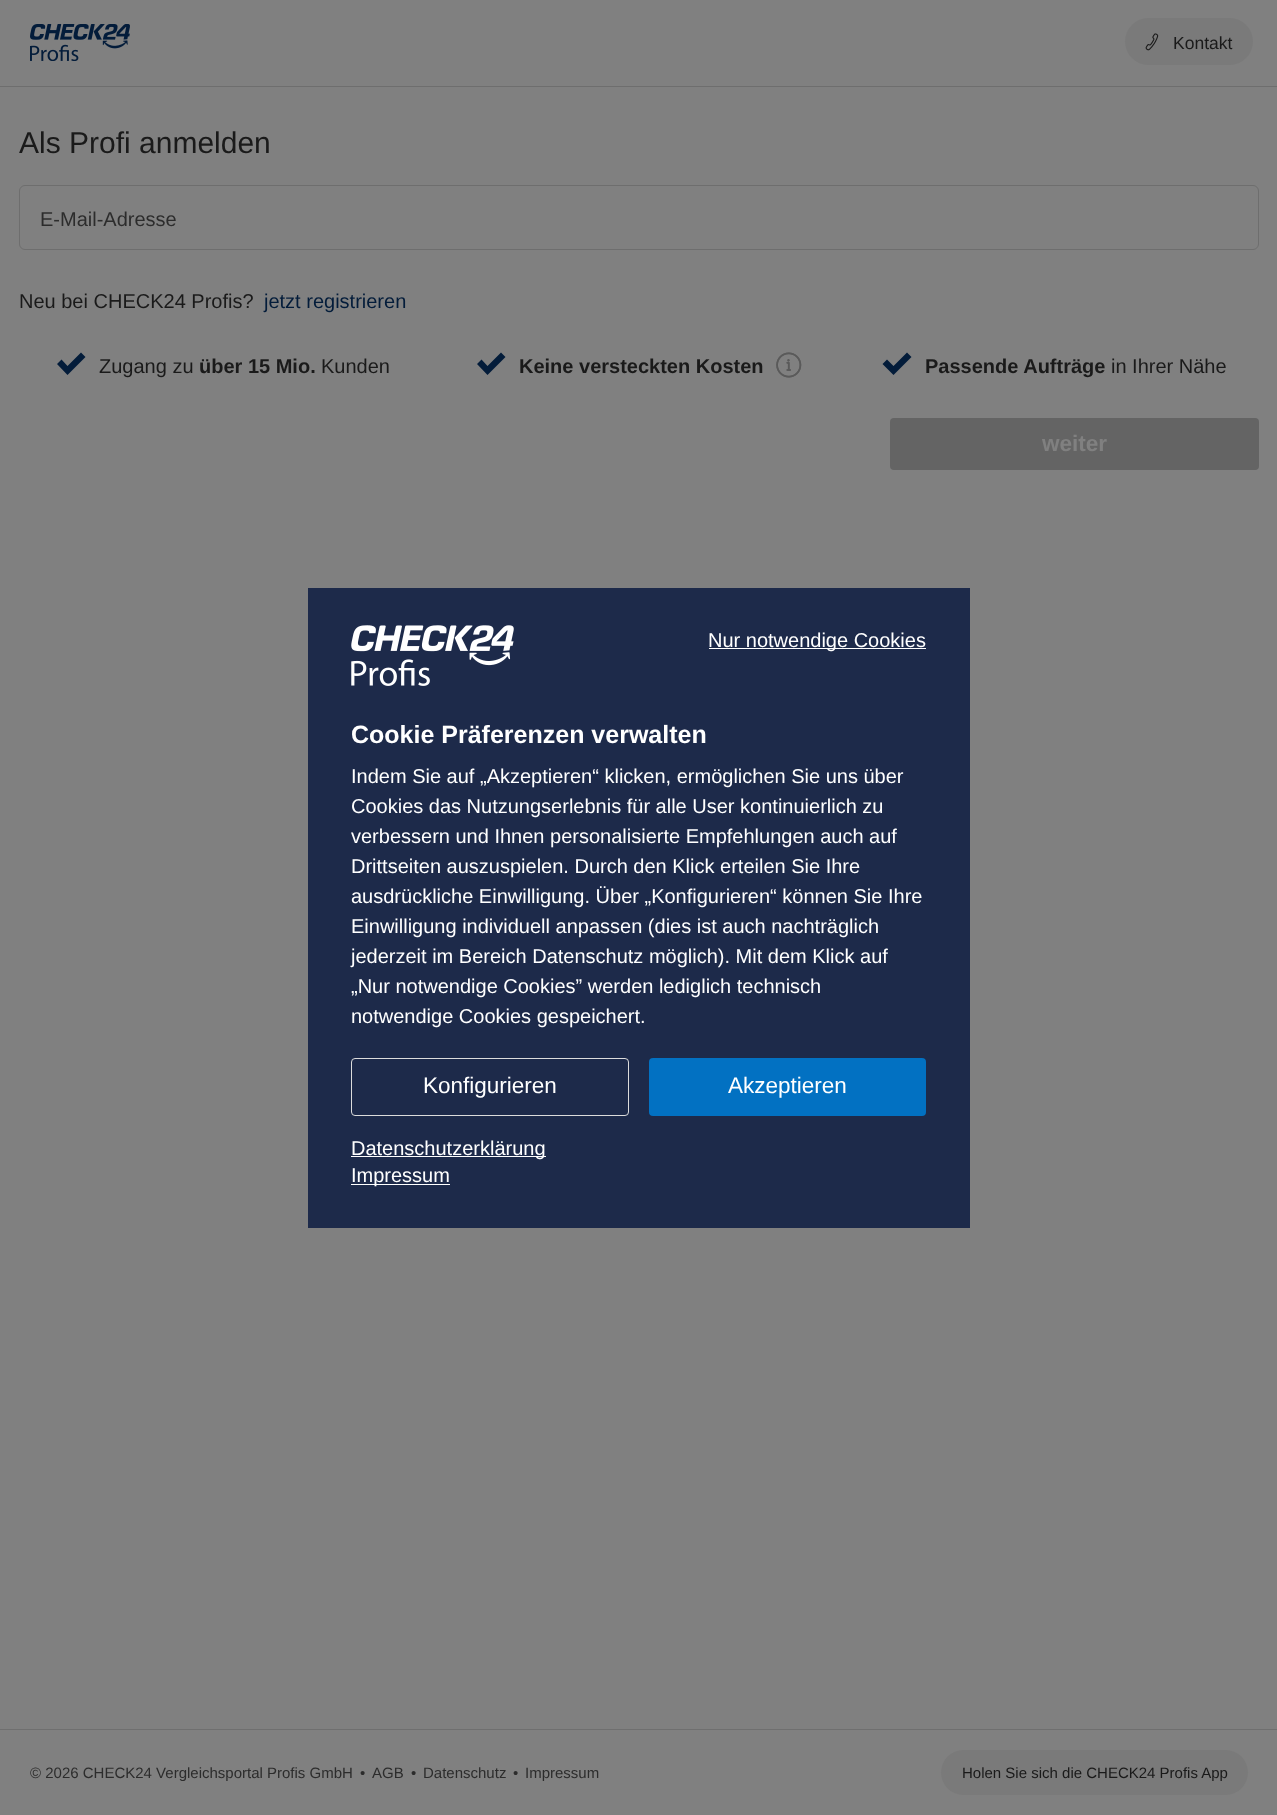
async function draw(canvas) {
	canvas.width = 1277;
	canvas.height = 1815;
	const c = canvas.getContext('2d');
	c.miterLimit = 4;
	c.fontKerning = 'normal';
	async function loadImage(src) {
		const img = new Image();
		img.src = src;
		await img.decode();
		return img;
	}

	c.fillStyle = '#808080';
	c.fillRect(0, 0, 1277, 1815);
	c.fillStyle = '#6e6e6e';
	c.fillRect(0, 86, 1277, 1);
	c.drawImage(await loadImage('img1.png'), 30, 24, 100, 37);
	c.fillStyle = '#7a7a7a';
	c.beginPath();
	c.roundRect(1125, 18, 128, 47, 23.5);
	c.fill();
	c.drawImage(await loadImage('img2.png'), 1145, 33, 14, 18);
	c.font = '17.5px Liberation Sans';
	c.fillStyle = '#1a1a1a';
	c.fillText('Kontakt', 1173, 49);
	c.font = '30px Liberation Sans';
	c.fillText('Als Profi anmelden', 19, 153);
	c.beginPath();
	c.roundRect(19.5, 185.5, 1239, 64, 5.5);
	c.strokeStyle = '#6e6e6e';
	c.stroke();
	c.font = '20px Liberation Sans';
	c.fillStyle = '#2c2c2c';
	c.fillText('E-Mail-Adresse', 40, 226);
	c.fillStyle = '#1a1a1a';
	c.fillText('Neu bei CHECK24 Profis?', 19, 308);
	c.fillStyle = '#031c3a';
	c.fillText('jetzt registrieren', 264, 308);
	c.beginPath();
	c.moveTo(81, 352.5);
	c.lineTo(67.5, 366);
	c.lineTo(61.5, 359.5);
	c.lineTo(57, 364);
	c.lineTo(67.5, 375);
	c.lineTo(85.5, 357);
	c.closePath();
	c.fill();
	c.fillStyle = '#1a1a1a';
	c.fillText('Zugang zu', 99, 373);
	c.font = 'bold 20px Liberation Sans';
	c.fillText('über 15 Mio.', 199, 373);
	c.font = '20px Liberation Sans';
	c.fillText('Kunden', 321, 373);
	c.fillStyle = '#031c3a';
	c.beginPath();
	c.moveTo(501, 352.5);
	c.lineTo(487.5, 366);
	c.lineTo(481.5, 359.5);
	c.lineTo(477, 364);
	c.lineTo(487.5, 375);
	c.lineTo(505.5, 357);
	c.closePath();
	c.fill();
	c.font = 'bold 20px Liberation Sans';
	c.fillStyle = '#1a1a1a';
	c.fillText('Keine versteckten Kosten', 519, 373);
	c.drawImage(await loadImage('img3.png'), 776, 352, 26, 26);
	c.fillStyle = '#031c3a';
	c.beginPath();
	c.moveTo(907, 352.5);
	c.lineTo(893.5, 366);
	c.lineTo(887, 359.5);
	c.lineTo(882.5, 364);
	c.lineTo(893.5, 375);
	c.lineTo(911.5, 357);
	c.closePath();
	c.fill();
	c.fillStyle = '#1a1a1a';
	c.fillText('Passende Aufträge', 925, 373);
	c.font = '20px Liberation Sans';
	c.fillText('in Ihrer Nähe', 1111, 373);
	c.fillStyle = '#646464';
	c.beginPath();
	c.roundRect(890, 418, 369, 52, 4);
	c.fill();
	c.font = 'bold 22.5px Liberation Sans';
	c.fillStyle = '#808080';
	c.fillText('weiter', 1042, 451);
	c.fillStyle = '#6f6f6f';
	c.fillRect(0, 1729, 1277, 1);
	c.font = '15px Liberation Sans';
	c.fillStyle = '#2c2c2c';
	for (const [text, x, y] of [
		['© 2026 CHECK24 Vergleichsportal Profis GmbH', 30, 1778],
		['•', 360, 1778],
		['AGB', 372, 1778],
		['•', 411, 1778],
		['Datenschutz', 423, 1778],
		['•', 513, 1778],
		['Impressum', 525, 1778],
	]) {
		c.fillText(text, x, y);
	}
	c.fillStyle = '#7a7a7a';
	c.beginPath();
	c.roundRect(941, 1750, 307, 45, 22.5);
	c.fill();
	c.fillStyle = '#1a1a1a';
	c.fillText('Holen Sie sich die CHECK24 Profis App', 962, 1778);
	c.fillStyle = '#1d2a4a';
	c.fillRect(308, 588, 662, 640);
	c.drawImage(await loadImage('img4.png'), 351, 625, 163, 61);
	c.fillStyle = '#fff';
	c.fillRect(709, 648, 217, 1);
	c.font = '20px Liberation Sans';
	c.fillText('Nur notwendige Cookies', 708, 647);
	c.font = 'bold 25px Liberation Sans';
	c.fillText('Cookie Präferenzen verwalten', 351, 743);
	c.font = '20px Liberation Sans';
	for (const [text, x, y] of [
		['Indem Sie auf „Akzeptieren“ klicken, ermöglichen Sie uns über', 351, 783],
		['Cookies das Nutzungserlebnis für alle User kontinuierlich zu', 351, 813],
		['verbessern und Ihnen personalisierte Empfehlungen auch auf', 351, 843],
		['Drittseiten auszuspielen. Durch den Klick erteilen Sie Ihre', 351, 873],
		['ausdrückliche Einwilligung. Über „Konfigurieren“ können Sie Ihre', 351, 903],
		['Einwilligung individuell anpassen (dies ist auch nachträglich', 351, 933],
		['jederzeit im Bereich Datenschutz möglich). Mit dem Klick auf', 351, 963],
		['„Nur notwendige Cookies” werden lediglich technisch', 351, 993],
		['notwendige Cookies gespeichert.', 351, 1023],
	]) {
		c.fillText(text, x, y);
	}
	c.beginPath();
	c.roundRect(351.5, 1058.5, 277, 57, 3.5);
	c.strokeStyle = '#dcdcdc';
	c.stroke();
	c.font = '22.5px Liberation Sans';
	c.fillText('Konfigurieren', 423, 1093);
	c.fillStyle = '#0271c2';
	c.beginPath();
	c.roundRect(649, 1058, 277, 58, 4);
	c.fill();
	c.fillStyle = '#fff';
	c.fillText('Akzeptieren', 728, 1093);
	c.fillRect(351, 1156, 195, 1);
	c.font = '20px Liberation Sans';
	c.fillText('Datenschutzerklärung', 351, 1155);
	c.fillRect(351, 1184, 99, 1);
	c.fillText('Impressum', 351, 1182);
}

draw(document.querySelector('canvas'));
